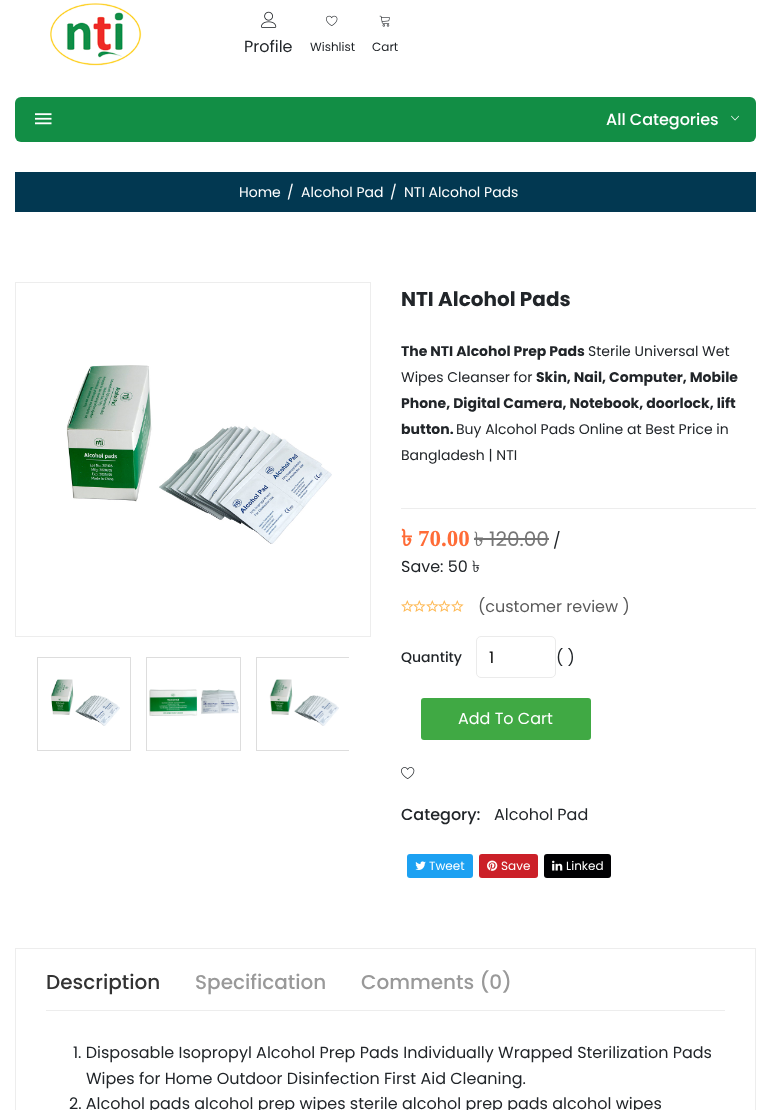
async function draw(canvas) {
	canvas.width = 771;
	canvas.height = 1110;
	const c = canvas.getContext('2d');
	c.miterLimit = 4;
	c.fontKerning = 'normal';
	async function loadImage(src) {
		const img = new Image();
		img.src = src;
		await img.decode();
		return img;
	}

	c.fillStyle = '#fff';
	c.fillRect(0, 0, 771, 1110);
	c.drawImage(await loadImage('img1.png'), 50, 3, 92, 63);
	c.drawImage(await loadImage('img2.png'), 261, 11, 16, 17);
	c.font = '16px Poppins';
	c.fillStyle = '#212529';
	c.fillText('Profile', 244, 52);
	c.drawImage(await loadImage('img3.png'), 326, 15, 12, 11);
	c.font = '12px Poppins';
	c.fillText('Wishlist', 310, 51);
	c.drawImage(await loadImage('img4.png'), 379, 15, 11, 12);
	c.fillText('Cart', 372, 51);
	c.fillStyle = '#128e45';
	c.beginPath();
	c.roundRect(15, 97, 741, 45, 6);
	c.fill();
	c.drawImage(await loadImage('img5.png'), 35, 113, 17, 12);
	c.font = '500 16px Poppins';
	c.fillStyle = '#fff';
	c.fillText('All Categories', 606, 125);
	c.drawImage(await loadImage('img6.png'), 731, 115, 8, 6);
	c.fillStyle = '#023851';
	c.fillRect(15, 172, 741, 40);
	c.font = '14px Poppins';
	c.fillStyle = '#fff';
	for (const [text, x, y] of [
		['Home', 239, 197],
		['/', 287, 197],
		['Alcohol Pad', 301, 197],
		['/', 390, 197],
		['NTI Alcohol Pads', 404, 197],
	]) {
		c.fillText(text, x, y);
	}
	c.strokeStyle = '#ededed';
	c.strokeRect(15.5, 282.5, 355, 354);
	c.drawImage(await loadImage('img7.png'), 66, 365, 266, 179);
	c.strokeStyle = '#ddd';
	c.strokeRect(37.5, 657.5, 93, 93);
	c.drawImage(await loadImage('img8.png'), 51, 679, 69, 47);
	c.strokeRect(146.5, 657.5, 94, 93);
	c.drawImage(await loadImage('img9.png'), 147, 689, 93, 62);
	c.save();
	c.beginPath();
	c.rect(36, 657, 313, 94);
	c.clip();
	c.strokeRect(256.5, 657.5, 93, 93);
	c.restore();
	c.drawImage(await loadImage('img10.png'), 269, 679, 70, 47);
	c.font = 'bold 20px Poppins';
	c.fillStyle = '#212529';
	c.fillText('NTI Alcohol Pads', 401, 306);
	c.fillStyle = '#ededed';
	c.fillRect(401, 508, 355, 1);
	c.font = 'bold 14px Poppins';
	c.fillStyle = '#212529';
	c.fillText('The NTI Alcohol Prep Pads', 401, 356);
	c.font = '14px Poppins';
	c.fillText('Sterile Universal Wet', 588, 356);
	c.fillText('Wipes Cleanser for', 401, 382);
	c.font = 'bold 14px Poppins';
	for (const [text, x, y] of [
		['Skin, Nail, Computer, Mobile', 536, 382],
		['Phone, Digital Camera, Notebook, doorlock, lift', 401, 408],
		['button.', 401, 434],
	]) {
		c.fillText(text, x, y);
	}
	c.font = '14px Poppins';
	c.fillText('Buy Alcohol Pads Online at Best Price in', 456, 434);
	c.fillText('Bangladesh | NTI', 401, 460);
	c.font = 'bold 23px Lohit Bengali';
	c.fillStyle = '#ff6c37';
	c.fillText('৳', 401, 546);
	c.font = 'bold 23px Liberation Serif';
	c.fillText('70.00', 418, 546);
	c.font = '20px Lohit Bengali';
	c.fillStyle = '#757575';
	c.fillText('৳', 474, 546);
	c.fillRect(474, 538, 75, 2);
	c.font = '20px Poppins';
	c.fillText('120.00', 489, 546);
	c.font = '16px Poppins';
	c.fillStyle = '#212529';
	c.fillText('/', 553, 546);
	c.fillText('Save: 50', 401, 572);
	c.font = '16px Lohit Bengali';
	c.fillText('৳', 472, 572);
	c.drawImage(await loadImage('img11.png'), 401, 600, 13, 12);
	c.drawImage(await loadImage('img12.png'), 413, 600, 13, 12);
	c.drawImage(await loadImage('img11.png'), 426, 600, 13, 12);
	c.drawImage(await loadImage('img12.png'), 438, 600, 13, 12);
	c.drawImage(await loadImage('img11.png'), 451, 600, 13, 12);
	c.font = '16px Poppins';
	c.fillStyle = '#5a5a5a';
	c.fillText('(customer review )', 478, 612);
	c.font = '500 14px Poppins';
	c.fillStyle = '#212529';
	c.fillText('Quantity', 401, 662);
	c.beginPath();
	c.roundRect(476.5, 636.5, 79, 41, 4.5);
	c.strokeStyle = '#ebebeb';
	c.stroke();
	c.font = '16px Poppins';
	c.fillStyle = '#000';
	c.fillText('1', 489, 663);
	c.fillStyle = '#212529';
	c.fillText('( )', 556, 663);
	c.fillStyle = '#40a944';
	c.beginPath();
	c.roundRect(421, 698, 170, 42, 3);
	c.fill();
	c.fillStyle = '#fff';
	c.fillText('Add To Cart', 458, 724);
	c.drawImage(await loadImage('img13.png'), 401, 767, 14, 12);
	c.font = '500 16px Poppins';
	c.fillStyle = '#212529';
	c.fillText('Category:', 401, 820);
	c.font = '16px Poppins';
	c.fillText('Alcohol Pad', 494, 820);
	c.fillStyle = '#1da1f2';
	c.beginPath();
	c.roundRect(407, 854, 66, 24, 3);
	c.fill();
	c.drawImage(await loadImage('img14.png'), 415, 861, 11, 9);
	c.font = '12px Poppins';
	c.fillStyle = '#fff';
	c.fillText('Tweet', 429, 870);
	c.fillStyle = '#cb2028';
	c.beginPath();
	c.roundRect(479, 854, 59, 24, 3);
	c.fill();
	c.drawImage(await loadImage('img15.png'), 487, 860, 11, 11);
	c.fillStyle = '#fff';
	c.fillText('Save', 501, 870);
	c.fillStyle = '#010103';
	c.beginPath();
	c.roundRect(544, 854, 67, 24, 3);
	c.fill();
	c.drawImage(await loadImage('img16.png'), 552, 860, 11, 11);
	c.fillStyle = '#fff';
	c.fillText('Linked', 566, 870);
	c.strokeStyle = '#ededed';
	c.strokeRect(15.5, 948.5, 740, 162);
	c.fillStyle = '#ededed';
	c.fillRect(46, 1010, 679, 1);
	c.font = '500 20px Poppins';
	c.fillStyle = '#333';
	c.fillText('Description', 46, 989);
	c.fillStyle = '#999';
	c.fillText('Specification', 195, 989);
	c.fillText('Comments (0)', 361, 989);
	c.font = '16px Poppins';
	c.fillStyle = '#212529';
	for (const [text, x, y] of [
		['1. Disposable Isopropyl Alcohol Prep Pads Individually Wrapped Sterilization Pads', 73, 1058],
		['Wipes for Home Outdoor Disinfection First Aid Cleaning.', 86, 1084],
		['2. Alcohol pads alcohol prep wipes sterile alcohol prep pads alcohol wipes', 69, 1109],
	]) {
		c.fillText(text, x, y);
	}
}

draw(document.querySelector('canvas'));
